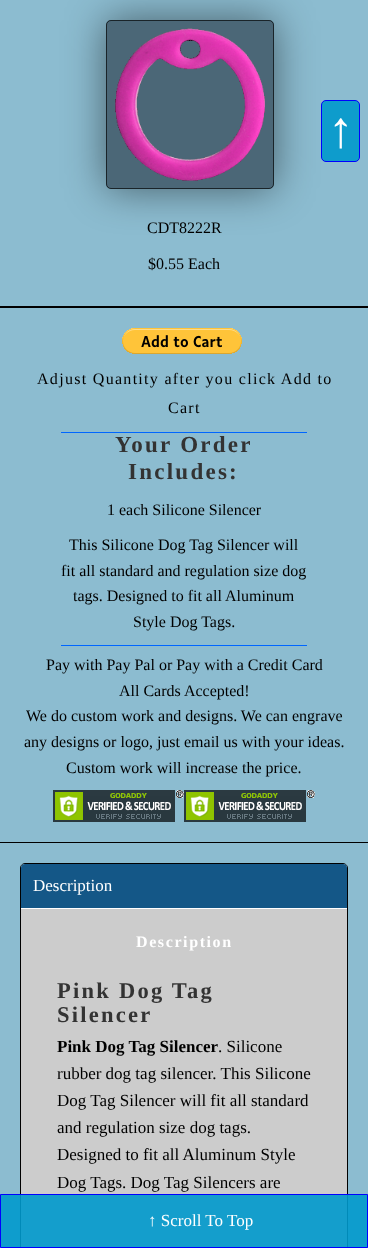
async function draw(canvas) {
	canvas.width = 368;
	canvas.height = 1248;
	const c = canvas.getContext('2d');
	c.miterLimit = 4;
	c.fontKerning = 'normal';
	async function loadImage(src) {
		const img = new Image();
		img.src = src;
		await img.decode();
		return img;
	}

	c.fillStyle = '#8cbcd0';
	c.fillRect(0, 0, 368, 1248);
	c.fillStyle = '#00000080';
	c.filter = 'blur(20px)';
	c.beginPath();
	c.roundRect(106, 20, 168, 169, 5);
	c.fill();
	c.filter = 'none';
	c.fillStyle = '#0e9ccc';
	c.beginPath();
	c.roundRect(321.5, 100.5, 38, 61, 4.5);
	c.fill();
	c.strokeStyle = '#00f';
	c.stroke();
	c.font = '51px Liberation Serif';
	c.fillStyle = '#fff';
	c.fillText('↑', 328, 147);
	c.fillStyle = '#000';
	c.fillRect(0, 306, 368, 2);
	c.fillStyle = '#4b6777';
	c.beginPath();
	c.roundRect(106, 20, 168, 169, 5);
	c.fill();
	c.beginPath();
	c.roundRect(106.5, 20.5, 167, 168, 4.5);
	c.strokeStyle = '#000000a6';
	c.stroke();
	c.drawImage(await loadImage('img1.png'), 115, 28, 150, 153);
	c.font = '16px Liberation Serif';
	c.fillStyle = '#000';
	c.fillText('CDT8222R', 147, 233);
	c.fillText('$0.55 Each', 148, 269);
	c.fillRect(0, 842, 368, 1);
	c.drawImage(await loadImage('img2.png'), 122, 328, 120, 26);
	c.letterSpacing = '1.3px';
	c.fillText('Adjust Quantity after you click Add to', 37, 384);
	c.fillText('Cart', 168, 413);
	c.fillStyle = '#06f';
	c.fillRect(61, 432, 246, 1);
	c.fillRect(61, 645, 246, 1);
	c.letterSpacing = '2.25px';
	c.font = 'bold 23px Liberation Serif';
	c.fillStyle = '#333';
	c.fillText('Your Order', 115, 452);
	c.fillText('Includes:', 128, 479);
	c.letterSpacing = '0px';
	c.font = '16px Liberation Serif';
	c.fillStyle = '#000';
	for (const [text, x, y] of [
		['1 each Silicone Silencer', 107, 515],
		['This Silicone Dog Tag Silencer will', 69, 550],
		['fit all standard and regulation size dog', 61, 576],
		['tags. Designed to fit all Aluminum', 73, 601],
		['Style Dog Tags.', 133, 627],
		['Pay with Pay Pal or Pay with a Credit Card', 46, 670],
		['All Cards Accepted!', 119, 696],
		['We do custom work and designs. We can engrave', 26, 721],
		['any designs or logo, just email us with your ideas.', 24, 747],
		['Custom work will increase the price.', 66, 773],
	]) {
		c.fillText(text, x, y);
	}
	c.drawImage(await loadImage('img3.png'), 53, 790, 131, 32);
	c.drawImage(await loadImage('img3.png'), 184, 790, 131, 32);
	c.beginPath();
	c.roundRect(20.5, 863.5, 327, 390, 4.5);
	c.strokeStyle = '#000';
	c.stroke();
	c.fillStyle = '#ccc';
	c.beginPath();
	c.roundRect(21, 864, 326, 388, 4);
	c.fill();
	c.fillStyle = '#145787';
	c.beginPath();
	c.roundRect(21, 864, 326, 45, [4, 4, 0, 0]);
	c.fill();
	c.fillStyle = '#fff';
	c.fillRect(21, 908, 326, 1);
	c.font = '17px Liberation Serif';
	c.fillText('Description', 33, 891);
	c.letterSpacing = '1.6px';
	c.font = 'bold 16px Liberation Serif';
	c.fillText('Description', 136, 947);
	c.letterSpacing = '2.25px';
	c.font = 'bold 22.5px Liberation Serif';
	c.fillStyle = '#333';
	c.fillText('Pink Dog Tag', 57, 998);
	c.fillText('Silencer', 57, 1022);
	c.letterSpacing = '0px';
	c.font = 'bold 17px Liberation Serif';
	c.fillStyle = '#000';
	c.fillText('Pink Dog Tag Silencer', 57, 1052);
	c.font = '17px Liberation Serif';
	for (const [text, x, y] of [
		['. Silicone', 218, 1052],
		['rubber dog tag silencer. This Silicone', 57, 1079],
		['Dog Tag Silencer will fit all standard', 57, 1106],
		['and regulation size dog tags.', 57, 1133],
		['Designed to fit all Aluminum Style', 57, 1160],
		['Dog Tags. Dog Tag Silencers are', 57, 1188],
	]) {
		c.fillText(text, x, y);
	}
	c.fillStyle = '#0099cce6';
	c.beginPath();
	c.rect(0.5, 1194.5, 367, 53);
	c.fill();
	c.strokeStyle = '#00f';
	c.stroke();
	c.fillStyle = '#fff';
	c.fillText('↑ Scroll To Top', 148, 1226);
}

draw(document.querySelector('canvas'));
